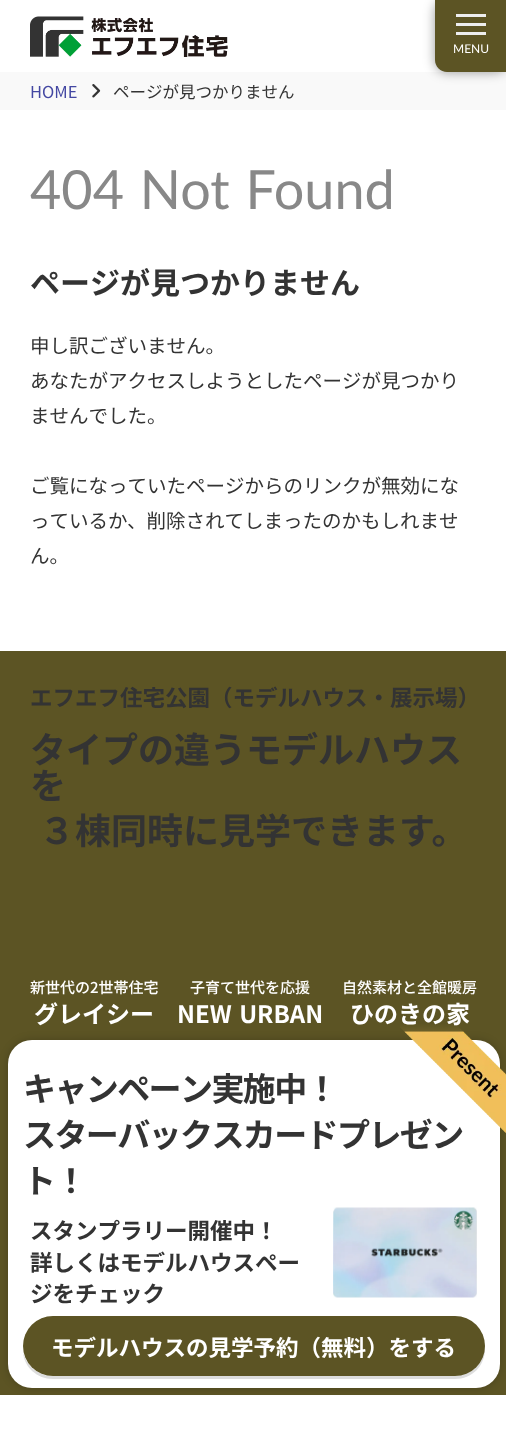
async function draw(canvas) {
	canvas.width = 506;
	canvas.height = 1447;
	const c = canvas.getContext('2d');
	c.miterLimit = 4;
	c.fontKerning = 'normal';
	async function loadImage(src) {
		const img = new Image();
		img.src = src;
		await img.decode();
		return img;
	}

	c.fillStyle = '#fff';
	c.fillRect(0, 0, 506, 1447);
	c.drawImage(await loadImage('img1.png'), 30, 16, 198, 41);
	c.fillStyle = '#f9f9f9';
	c.fillRect(0, 72, 506, 38);
	c.fillStyle = '#00000066';
	c.filter = 'blur(6px)';
	c.beginPath();
	c.roundRect(435, 0, 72, 72, 12);
	c.fill();
	c.filter = 'none';
	c.fillStyle = '#5c5424';
	c.beginPath();
	c.moveTo(435, 0);
	c.lineTo(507, 0);
	c.lineTo(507, 72);
	c.lineTo(447, 72);
	c.bezierCurveTo(440.5, 72, 435, 66.5, 435, 60);
	c.closePath();
	c.fill();
	for (const [x, y, w, h, color] of [
		[456, 14, 30, 3, '#eee'],
		[456, 23, 30, 3, '#eee'],
		[456, 32, 30, 3, '#eee'],
	]) {
		c.fillStyle = color;
		c.fillRect(x, y, w, h);
	}
	c.font = '12px Lato';
	c.fillStyle = '#fff';
	c.fillText('MENU', 453, 53);
	c.font = '16.5px Noto Sans JP';
	c.fillStyle = '#4347a2';
	c.fillText('HOME', 30, 98);
	c.drawImage(await loadImage('img2.png'), 92, 84, 9, 14);
	c.fillStyle = '#333';
	c.fillText('ページが見つかりません', 113, 98);
	c.wordSpacing = '2px';
	c.font = '54px Lato';
	c.fillStyle = '#888';
	c.fillText('404 Not Found', 30, 209);
	c.wordSpacing = '0px';
	c.font = 'bold 30px Noto Sans JP';
	c.fillStyle = '#333';
	c.fillText('ページが見つかりません', 30, 294);
	c.font = '19.5px Noto Sans JP';
	for (const [text, x, y] of [
		['申し訳ございません。', 30, 353],
		['あなたがアクセスしようとしたページが見つかり', 30, 388],
		['ませんでした。', 30, 423],
		['ご覧になっていたページからのリンクが無効にな', 30, 493],
		['っているか、削除されてしまったのかもしれませ', 30, 528],
		['ん。', 30, 563],
	]) {
		c.fillText(text, x, y);
	}
	c.fillStyle = '#5c5424';
	c.fillRect(0, 651, 506, 744);
	c.font = 'bold 22.5px Noto Sans JP';
	c.fillStyle = '#333';
	c.fillText('エフエフ住宅公園（モデルハウス・展示場）', 30, 706);
	c.font = 'bold 36px Noto Sans JP';
	for (const [text, x, y] of [
		['タイプの違うモデルハウス', 30, 763],
		['を', 30, 799],
		['３棟同時に見学できます。', 39, 844],
	]) {
		c.fillText(text, x, y);
	}
	c.font = '500 15px Noto Sans JP';
	c.fillStyle = '#fff';
	c.fillText('新世代の2世帯住宅', 30, 993);
	c.font = 'bold 24px Noto Sans JP';
	c.fillText('グレイシー', 34, 1023);
	c.font = '500 15px Noto Sans JP';
	c.fillText('子育て世代を応援', 190, 993);
	c.wordSpacing = '2px';
	c.font = 'bold 24px Noto Sans JP';
	c.fillText('NEW URBAN', 177, 1023);
	c.wordSpacing = '0px';
	c.font = '500 15px Noto Sans JP';
	c.fillText('自然素材と全館暖房', 342, 993);
	c.font = 'bold 24px Noto Sans JP';
	c.fillText('ひのきの家', 350, 1023);
	c.fillStyle = '#00000033';
	c.filter = 'blur(4px)';
	c.beginPath();
	c.roundRect(8, 1040, 492, 348, 24);
	c.fill();
	c.filter = 'none';
	c.fillStyle = '#fff';
	c.beginPath();
	c.roundRect(8, 1040, 492, 348, 24);
	c.fill();
	c.drawImage(await loadImage('img3.png'), 400, 1024, 106, 109);
	c.letterSpacing = '-1.6px';
	c.font = 'bold 33px Noto Sans JP';
	c.fillStyle = '#333';
	for (const [text, x, y] of [
		['キャンペーン実施中！', 23, 1101],
		['スターバックスカードプレゼン', 23, 1147],
		['ト！', 23, 1193],
	]) {
		c.fillText(text, x, y);
	}
	c.letterSpacing = '0px';
	c.font = 'bold 22.5px Noto Sans JP';
	for (const [text, x, y] of [
		['スタンプラリー開催中！', 30, 1239],
		['詳しくはモデルハウスペー', 30, 1271],
		['ジをチェック', 30, 1302],
	]) {
		c.fillText(text, x, y);
	}
	c.drawImage(await loadImage('img4.png'), 333, 1207, 144, 91);
	c.fillStyle = '#ddd';
	c.beginPath();
	c.moveTo(23, 1352);
	c.bezierCurveTo(24, 1367, 37, 1379, 53, 1379);
	c.lineTo(455, 1379);
	c.bezierCurveTo(472, 1379, 485, 1366, 485, 1349);
	c.lineTo(484, 1343);
	c.lineTo(484, 1346);
	c.bezierCurveTo(484, 1362, 471, 1376, 454, 1376);
	c.lineTo(52, 1376);
	c.bezierCurveTo(38, 1376, 26, 1365, 23, 1352);
	c.closePath();
	c.fill();
	c.fillStyle = '#5c5424';
	c.beginPath();
	c.roundRect(23, 1316, 462, 60, 30);
	c.fill();
	c.fillStyle = '#fff';
	c.fillText('モデルハウスの見学予約（無料）をする', 51, 1356);
}

draw(document.querySelector('canvas'));
